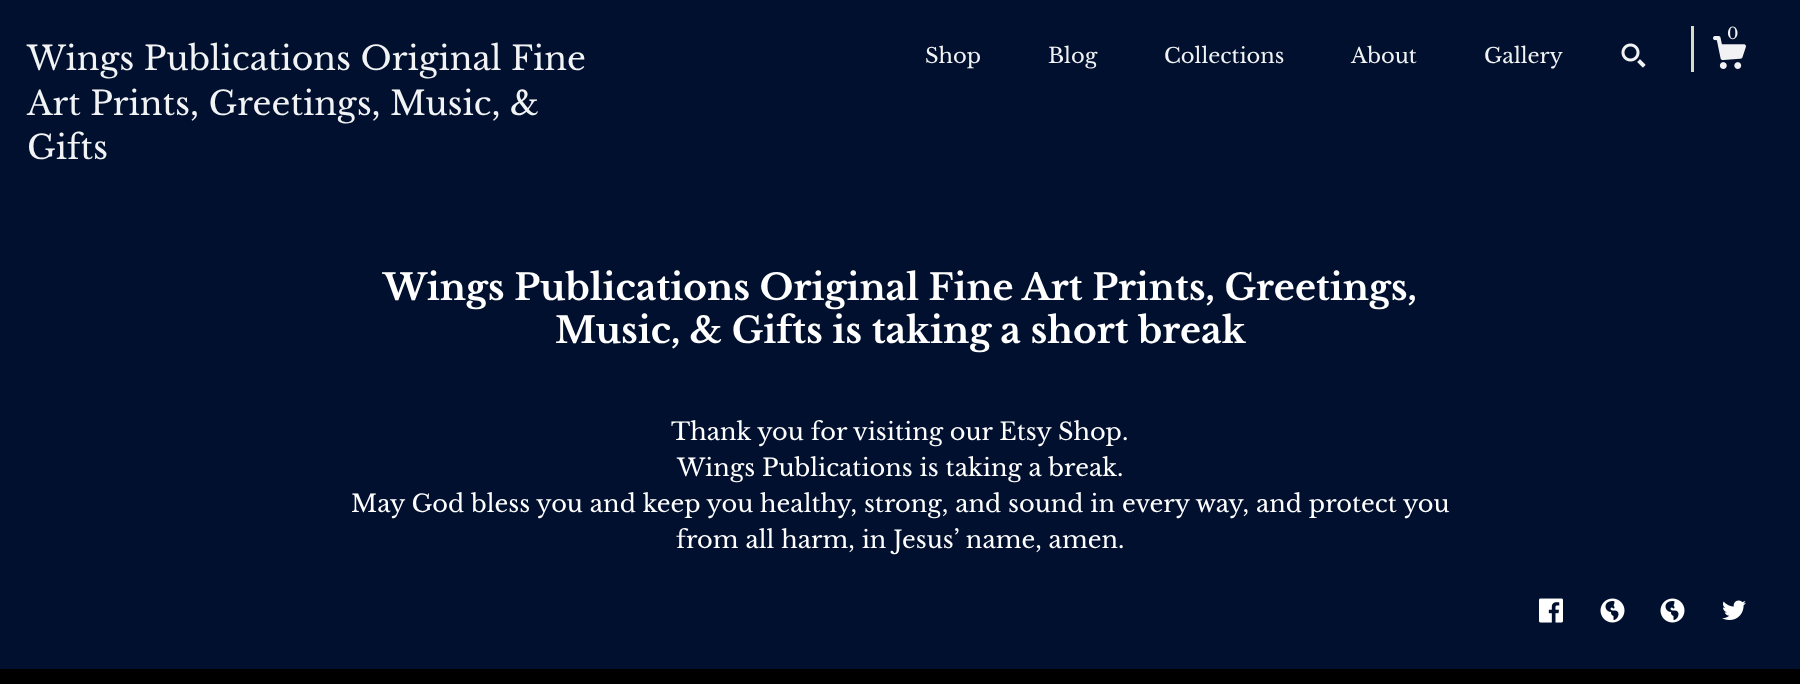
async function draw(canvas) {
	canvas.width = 1800;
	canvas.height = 684;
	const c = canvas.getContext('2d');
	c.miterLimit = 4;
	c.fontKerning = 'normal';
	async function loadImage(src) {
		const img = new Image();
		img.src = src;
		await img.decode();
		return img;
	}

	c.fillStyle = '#00102e';
	c.fillRect(0, 0, 1800, 684);
	c.font = '33px Libre Baskerville';
	c.fillStyle = '#f2f3f5';
	for (const [text, x, y] of [
		['Wings Publications Original Fine', 27, 70],
		['Art Prints, Greetings, Music, &', 27, 115],
		['Gifts', 27, 159],
	]) {
		c.fillText(text, x, y);
	}
	c.fillStyle = '#dadbc3';
	c.fillRect(1691, 26, 3, 46);
	c.drawImage(await loadImage('img1.png'), 1713, 36, 33, 33);
	c.font = '16px Libre Baskerville';
	c.fillStyle = '#f2f3f5';
	c.fillText('0', 1727, 39);
	c.font = '21px Libre Baskerville';
	for (const [text, x, y] of [
		['Shop', 925, 63],
		['Blog', 1048, 63],
		['Collections', 1164, 63],
		['About', 1351, 63],
		['Gallery', 1484, 63],
	]) {
		c.fillText(text, x, y);
	}
	c.drawImage(await loadImage('img2.png'), 1621, 43, 25, 25);
	c.font = 'bold 36px Libre Baskerville';
	c.fillStyle = '#fff';
	c.fillText('Wings Publications Original Fine Art Prints, Greetings,', 383, 300);
	c.fillText('Music, & Gifts is taking a short break', 555, 343);
	c.font = '24px Libre Baskerville';
	for (const [text, x, y] of [
		['Thank you for visiting our Etsy Shop.', 671, 440],
		['Wings Publications is taking a break.', 677, 476],
		['May God bless you and keep you healthy, strong, and sound in every way, and protect you', 351, 512],
		['from all harm, in Jesus’ name, amen.', 676, 548],
	]) {
		c.fillText(text, x, y);
	}
	c.drawImage(await loadImage('img3.png'), 1539, 598, 24, 25);
	c.drawImage(await loadImage('img4.png'), 1600, 598, 25, 25);
	c.drawImage(await loadImage('img4.png'), 1660, 598, 25, 25);
	c.drawImage(await loadImage('img5.png'), 1722, 600, 24, 20);
	c.fillStyle = '#000';
	c.fillRect(0, 669, 1800, 15);
}

draw(document.querySelector('canvas'));
